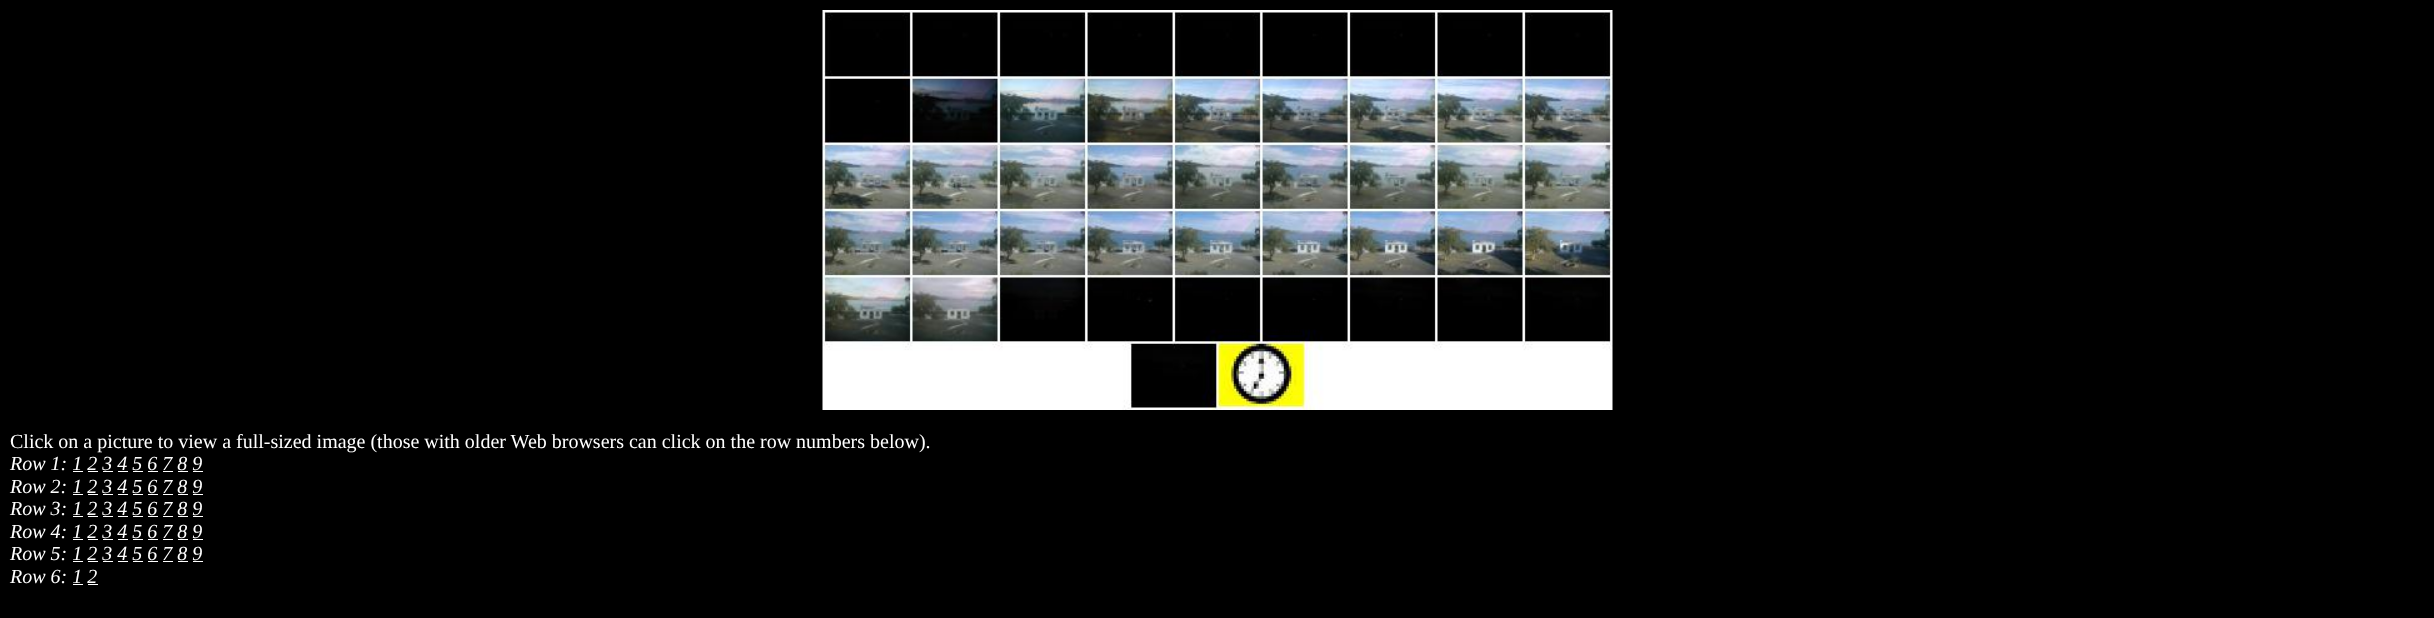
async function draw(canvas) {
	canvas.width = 2434;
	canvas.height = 618;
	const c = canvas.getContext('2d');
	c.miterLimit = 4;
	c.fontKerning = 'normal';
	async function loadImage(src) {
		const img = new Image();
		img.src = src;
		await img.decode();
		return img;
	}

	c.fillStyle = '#000';
	c.fillRect(0, 0, 2434, 618);
	c.drawImage(await loadImage('img1.png'), 822, 10, 791, 400);
	c.font = '20px Liberation Serif';
	c.fillStyle = '#fff';
	c.fillText('Click on a picture to view a full-sized image (those with older Web browsers can click on the row numbers below).', 10, 448);
	c.font = 'italic 20px Liberation Serif';
	c.fillText('Row 1: 1 2 3 4 5 6 7 8 9', 10, 470);
	for (const [x, y, w, h, color] of [
		[73, 471, 10, 1, '#fff'],
		[88, 471, 10, 1, '#fff'],
		[103, 471, 10, 1, '#fff'],
		[118, 471, 10, 1, '#fff'],
		[133, 471, 10, 1, '#fff'],
		[148, 471, 10, 1, '#fff'],
		[163, 471, 10, 1, '#fff'],
		[178, 471, 10, 1, '#fff'],
		[193, 471, 10, 1, '#fff'],
	]) {
		c.fillStyle = color;
		c.fillRect(x, y, w, h);
	}
	c.fillText('Row 2: 1 2 3 4 5 6 7 8 9', 10, 493);
	for (const [x, y, w, h, color] of [
		[73, 494, 10, 1, '#fff'],
		[88, 494, 10, 1, '#fff'],
		[103, 494, 10, 1, '#fff'],
		[118, 494, 10, 1, '#fff'],
		[133, 494, 10, 1, '#fff'],
		[148, 494, 10, 1, '#fff'],
		[163, 494, 10, 1, '#fff'],
		[178, 494, 10, 1, '#fff'],
		[193, 494, 10, 1, '#fff'],
	]) {
		c.fillStyle = color;
		c.fillRect(x, y, w, h);
	}
	c.fillText('Row 3: 1 2 3 4 5 6 7 8 9', 10, 515);
	for (const [x, y, w, h, color] of [
		[73, 516, 10, 1, '#fff'],
		[88, 516, 10, 1, '#fff'],
		[103, 516, 10, 1, '#fff'],
		[118, 516, 10, 1, '#fff'],
		[133, 516, 10, 1, '#fff'],
		[148, 516, 10, 1, '#fff'],
		[163, 516, 10, 1, '#fff'],
		[178, 516, 10, 1, '#fff'],
		[193, 516, 10, 1, '#fff'],
	]) {
		c.fillStyle = color;
		c.fillRect(x, y, w, h);
	}
	c.fillText('Row 4: 1 2 3 4 5 6 7 8 9', 10, 538);
	for (const [x, y, w, h, color] of [
		[73, 539, 10, 1, '#fff'],
		[88, 539, 10, 1, '#fff'],
		[103, 539, 10, 1, '#fff'],
		[118, 539, 10, 1, '#fff'],
		[133, 539, 10, 1, '#fff'],
		[148, 539, 10, 1, '#fff'],
		[163, 539, 10, 1, '#fff'],
		[178, 539, 10, 1, '#fff'],
		[193, 539, 10, 1, '#fff'],
	]) {
		c.fillStyle = color;
		c.fillRect(x, y, w, h);
	}
	c.fillText('Row 5: 1 2 3 4 5 6 7 8 9', 10, 560);
	for (const [x, y, w, h, color] of [
		[73, 561, 10, 1, '#fff'],
		[88, 561, 10, 1, '#fff'],
		[103, 561, 10, 1, '#fff'],
		[118, 561, 10, 1, '#fff'],
		[133, 561, 10, 1, '#fff'],
		[148, 561, 10, 1, '#fff'],
		[163, 561, 10, 1, '#fff'],
		[178, 561, 10, 1, '#fff'],
		[193, 561, 10, 1, '#fff'],
	]) {
		c.fillStyle = color;
		c.fillRect(x, y, w, h);
	}
	c.fillText('Row 6: 1 2', 10, 583);
	c.fillRect(73, 584, 10, 1);
	c.fillRect(88, 584, 10, 1);
}

draw(document.querySelector('canvas'));
